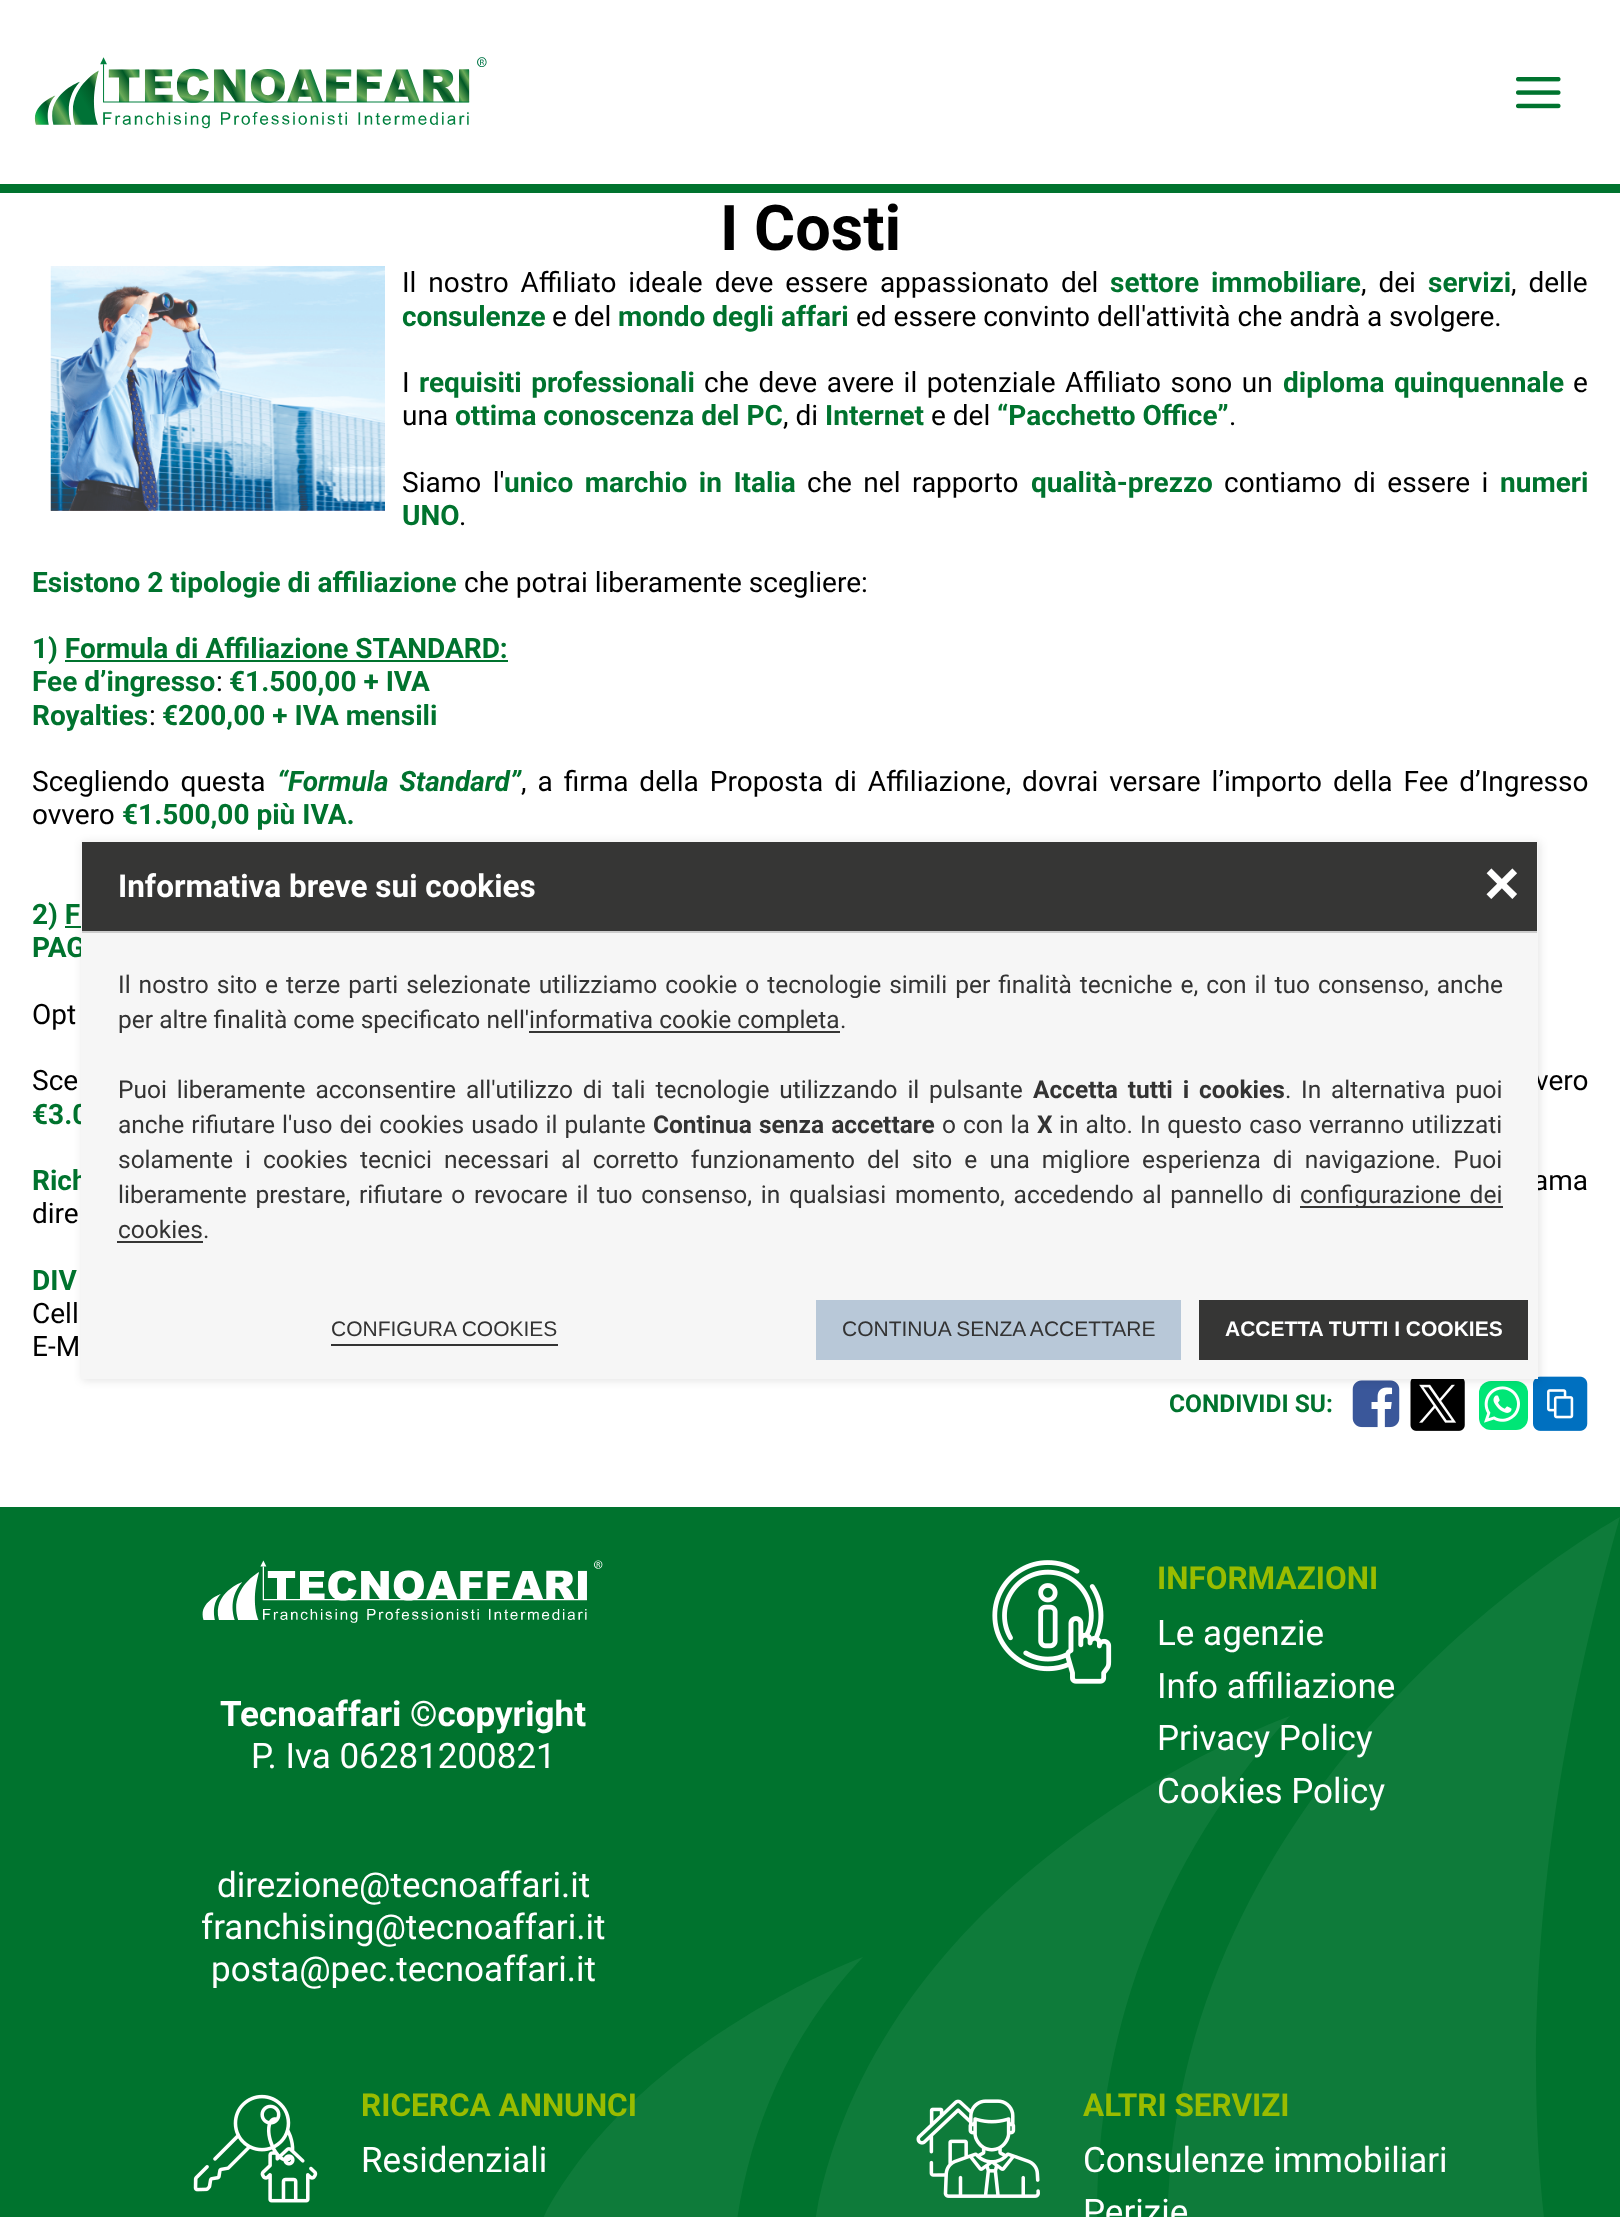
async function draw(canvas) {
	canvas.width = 1620;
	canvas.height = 2217;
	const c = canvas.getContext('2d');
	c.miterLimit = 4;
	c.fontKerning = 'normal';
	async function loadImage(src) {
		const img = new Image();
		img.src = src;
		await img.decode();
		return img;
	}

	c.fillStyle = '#fff';
	c.fillRect(0, 0, 1620, 2217);
	c.fillStyle = '#00732e';
	c.fillRect(0, 184, 1620, 9);
	c.drawImage(await loadImage('img1.png'), 34, 57, 453, 72);
	c.drawImage(await loadImage('img2.png'), 1516, 77, 45, 32);
	c.font = 'bold 63px Roboto';
	c.fillStyle = '#000';
	c.fillText('I Costi', 720, 250);
	c.drawImage(await loadImage('img3.png'), 50, 266, 335, 245);
	c.wordSpacing = '5px';
	c.font = '28px Roboto';
	c.fillText('Il nostro Affiliato ideale deve essere appassionato del', 402, 292);
	c.font = 'bold 28px Roboto';
	c.fillStyle = '#00732e';
	c.fillText('settore immobiliare', 1110, 292);
	c.font = '28px Roboto';
	c.fillStyle = '#000';
	c.fillText(', dei', 1361, 292);
	c.wordSpacing = '0px';
	c.font = 'bold 28px Roboto';
	c.fillStyle = '#00732e';
	c.fillText('servizi', 1428, 292);
	c.wordSpacing = '5px';
	c.font = '28px Roboto';
	c.fillStyle = '#000';
	c.fillText(', delle', 1511, 292);
	c.wordSpacing = '0px';
	c.font = 'bold 28px Roboto';
	c.fillStyle = '#00732e';
	c.fillText('consulenze', 402, 326);
	c.font = '28px Roboto';
	c.fillStyle = '#000';
	c.fillText('e del', 552, 326);
	c.font = 'bold 28px Roboto';
	c.fillStyle = '#00732e';
	c.fillText('mondo degli affari', 618, 326);
	c.font = '28px Roboto';
	c.fillStyle = '#000';
	c.fillText('ed essere convinto dell\'attività che andrà a svolgere.', 856, 326);
	c.fillText('I', 402, 392);
	c.wordSpacing = '2.6px';
	c.font = 'bold 28px Roboto';
	c.fillStyle = '#00732e';
	c.fillText('requisiti professionali', 419, 392);
	c.font = '28px Roboto';
	c.fillStyle = '#000';
	c.fillText('che deve avere il potenziale Affiliato sono un', 704, 392);
	c.font = 'bold 28px Roboto';
	c.fillStyle = '#00732e';
	c.fillText('diploma quinquennale', 1283, 392);
	c.wordSpacing = '0px';
	c.font = '28px Roboto';
	c.fillStyle = '#000';
	c.fillText('e', 1573, 392);
	c.fillText('una', 402, 425);
	c.font = 'bold 28px Roboto';
	c.fillStyle = '#00732e';
	c.fillText('ottima conoscenza del PC', 455, 425);
	c.font = '28px Roboto';
	c.fillStyle = '#000';
	c.fillText(', di', 783, 425);
	c.font = 'bold 28px Roboto';
	c.fillStyle = '#00732e';
	c.fillText('Internet', 825, 425);
	c.font = '28px Roboto';
	c.fillStyle = '#000';
	c.fillText('e del', 931, 425);
	c.font = 'bold 28px Roboto';
	c.fillStyle = '#00732e';
	c.fillText('“Pacchetto Office”', 997, 425);
	c.font = '28px Roboto';
	c.fillStyle = '#000';
	c.fillText('.', 1229, 425);
	c.wordSpacing = '4.5px';
	c.fillText('Siamo l\'', 402, 492);
	c.font = 'bold 28px Roboto';
	c.fillStyle = '#00732e';
	c.fillText('unico marchio in Italia', 504, 492);
	c.font = '28px Roboto';
	c.fillStyle = '#000';
	c.fillText('che nel rapporto', 807, 492);
	c.wordSpacing = '0px';
	c.font = 'bold 28px Roboto';
	c.fillStyle = '#00732e';
	c.fillText('qualità-prezzo', 1031, 492);
	c.wordSpacing = '4.5px';
	c.font = '28px Roboto';
	c.fillStyle = '#000';
	c.fillText('contiamo di essere i', 1224, 492);
	c.wordSpacing = '0px';
	c.font = 'bold 28px Roboto';
	c.fillStyle = '#00732e';
	c.fillText('numeri', 1500, 492);
	c.fillText('UNO', 402, 525);
	c.font = '28px Roboto';
	c.fillStyle = '#000';
	c.fillText('.', 459, 525);
	c.font = 'bold 28px Roboto';
	c.fillStyle = '#00732e';
	c.fillText('Esistono 2 tipologie di affiliazione', 32, 592);
	c.font = '28px Roboto';
	c.fillStyle = '#000';
	c.fillText('che potrai liberamente scegliere:', 464, 592);
	c.font = 'bold 28px Roboto';
	c.fillStyle = '#00732e';
	c.fillText('1) Formula di Affiliazione STANDARD:', 32, 658);
	c.fillRect(65, 660, 443, 2);
	c.fillText('Fee d’ingresso', 32, 691);
	c.font = '28px Roboto';
	c.fillStyle = '#000';
	c.fillText(':', 216, 691);
	c.font = 'bold 28px Roboto';
	c.fillStyle = '#00732e';
	c.fillText('€1.500,00 + IVA', 229, 691);
	c.fillText('Royalties', 32, 725);
	c.font = '28px Roboto';
	c.fillStyle = '#000';
	c.fillText(':', 149, 725);
	c.font = 'bold 28px Roboto';
	c.fillStyle = '#00732e';
	c.fillText('€200,00 + IVA mensili', 162, 725);
	c.wordSpacing = '4px';
	c.font = '28px Roboto';
	c.fillStyle = '#000';
	c.fillText('Scegliendo questa', 32, 791);
	c.font = 'italic bold 28px Roboto';
	c.fillStyle = '#00732e';
	c.fillText('“Formula Standard”', 277, 791);
	c.font = '28px Roboto';
	c.fillStyle = '#000';
	c.fillText(', a firma della Proposta di Affiliazione, dovrai versare l’importo della Fee d’Ingresso', 521, 791);
	c.wordSpacing = '0px';
	c.fillText('ovvero', 32, 824);
	c.font = 'bold 28px Roboto';
	c.fillStyle = '#00732e';
	c.fillText('€1.500,00 più IVA.', 122, 824);
	c.fillText('2) F', 32, 924);
	c.fillRect(65, 926, 16, 2);
	c.fillText('PAG', 32, 957);
	c.font = '28px Roboto';
	c.fillStyle = '#000';
	c.fillText('Opt', 32, 1024);
	c.wordSpacing = '5px';
	c.fillText('Sce', 32, 1090);
	c.fillText('vero', 1535, 1090);
	c.wordSpacing = '0px';
	c.font = 'bold 28px Roboto';
	c.fillStyle = '#00732e';
	c.fillText('€3.0', 32, 1124);
	c.wordSpacing = '3px';
	c.fillText('Rich', 32, 1190);
	c.font = '28px Roboto';
	c.fillStyle = '#000';
	c.fillText('ama', 1533, 1190);
	c.wordSpacing = '0px';
	c.fillText('dire', 32, 1223);
	c.font = 'bold 28px Roboto';
	c.fillStyle = '#00732e';
	c.fillText('DIV', 32, 1290);
	c.font = '28px Roboto';
	c.fillStyle = '#000';
	c.fillText('Cell', 32, 1323);
	c.fillText('E-M', 32, 1356);
	c.font = 'bold 24.5px Roboto';
	c.fillStyle = '#00732e';
	c.fillText('CONDIVIDI SU:', 1169, 1412);
	c.drawImage(await loadImage('img4.png'), 1352, 1380, 48, 48);
	c.drawImage(await loadImage('img5.png'), 1410, 1379, 55, 52);
	c.fillStyle = '#00e676';
	c.beginPath();
	c.roundRect(1479, 1381, 49, 49, 12);
	c.fill();
	c.drawImage(await loadImage('img6.png'), 1484, 1386, 36, 37);
	c.drawImage(await loadImage('img7.png'), 1533, 1376, 55, 55);
	c.fillStyle = '#0000001a';
	c.filter = 'blur(4.5px)';
	c.beginPath();
	c.rect(82, 842, 1458, 539);
	c.fill();
	c.filter = 'none';
	for (const [x, y, w, h, color] of [
		[81, 840, 1457, 539, '#f6f6f6'],
		[82, 842, 1455, 89, '#363635'],
		[82, 931, 1455, 2, '#ccc'],
	]) {
		c.fillStyle = color;
		c.fillRect(x, y, w, h);
	}
	c.font = 'bold 31.5px Roboto';
	c.fillStyle = '#fff';
	c.fillText('Informativa breve sui cookies', 118, 897);
	c.font = 'bold 61px Liberation Sans';
	c.fillText('×', 1484, 904);
	c.wordSpacing = '1.9px';
	c.font = '24.5px Roboto';
	c.fillStyle = '#333';
	c.fillText('Il nostro sito e terze parti selezionate utilizziamo cookie o tecnologie simili per finalità tecniche e, con il tuo consenso, anche', 118, 993);
	c.wordSpacing = '0px';
	c.fillText('per altre finalità come specificato nell\'', 118, 1028);
	c.fillStyle = '#363635';
	c.fillRect(529, 1031, 311, 2);
	c.fillStyle = '#333';
	c.fillText('informativa cookie completa', 529, 1028);
	c.fillText('.', 840, 1028);
	c.wordSpacing = '3.75px';
	c.fillText('Puoi liberamente acconsentire all\'utilizzo di tali tecnologie utilizzando il pulsante', 118, 1098);
	c.font = 'bold 24.5px Roboto';
	c.fillText('Accetta tutti i cookies', 1033, 1098);
	c.wordSpacing = '0px';
	c.font = '24.5px Roboto';
	c.fillText('.', 1285, 1098);
	c.wordSpacing = '3.75px';
	c.fillText('In alternativa puoi', 1301, 1098);
	c.wordSpacing = '1px';
	c.fillText('anche rifiutare l\'uso dei cookies usado il pulante', 118, 1133);
	c.font = 'bold 24.5px Roboto';
	c.fillText('Continua senza accettare', 653, 1133);
	c.font = '24.5px Roboto';
	c.fillText('o con la', 942, 1133);
	c.wordSpacing = '0px';
	c.font = 'bold 24.5px Roboto';
	c.fillText('X', 1037, 1133);
	c.wordSpacing = '1px';
	c.font = '24.5px Roboto';
	c.fillText('in alto.', 1059, 1133);
	c.fillText('In questo caso verranno utilizzati', 1140, 1133);
	c.wordSpacing = '6px';
	c.fillText('solamente i cookies tecnici necessari al corretto funzionamento del sito e una migliore esperienza di navigazione. Puoi', 118, 1168);
	c.wordSpacing = '2.6px';
	c.fillText('liberamente prestare, rifiutare o revocare il tuo consenso, in qualsiasi momento, accedendo al pannello di', 118, 1203);
	c.fillStyle = '#363635';
	c.fillRect(1300, 1206, 203, 2);
	c.fillStyle = '#333';
	c.fillText('configurazione dei', 1300, 1203);
	c.wordSpacing = '0px';
	c.fillText('cookies', 118, 1238);
	c.fillStyle = '#363635';
	c.fillRect(117, 1241, 86, 2);
	c.fillStyle = '#333';
	c.fillText('.', 203, 1238);
	c.font = '21px Liberation Sans';
	c.fillText('CONFIGURA COOKIES', 331, 1336);
	c.fillRect(331, 1344, 227, 2);
	c.fillStyle = '#b8c8d8';
	c.fillRect(816, 1300, 365, 60);
	c.fillStyle = '#333';
	c.fillText('CONTINUA SENZA ACCETTARE', 842, 1336);
	c.fillStyle = '#363635';
	c.fillRect(1199, 1300, 329, 60);
	c.font = 'bold 21px Liberation Sans';
	c.fillStyle = '#fff';
	c.fillText('ACCETTA TUTTI I COOKIES', 1225, 1336);
	c.fillStyle = '#00732e';
	c.fillRect(0, 1507, 1620, 710);
	c.fillStyle = '#0e7b3a';
	c.beginPath();
	c.moveTo(863, 1957);
	c.bezierCurveTo(863, 1957, 413, 2125, 524, 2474);
	c.lineTo(750, 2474);
	c.bezierCurveTo(750, 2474, 660, 2169, 863, 1957);
	c.closePath();
	c.fill();
	c.beginPath();
	c.moveTo(1290, 1716);
	c.bezierCurveTo(1290, 1716, 688, 1932, 828, 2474);
	c.lineTo(1141, 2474);
	c.bezierCurveTo(1141, 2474, 975, 2065, 1290, 1716);
	c.closePath();
	c.fill();
	c.beginPath();
	c.moveTo(1620, 1517);
	c.bezierCurveTo(1620, 1517, 1010, 1853, 1207, 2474);
	c.lineTo(1607, 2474);
	c.bezierCurveTo(1607, 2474, 1439, 2147, 1620, 1517);
	c.closePath();
	c.fill();
	c.drawImage(await loadImage('img8.png'), 202, 1560, 401, 63);
	c.font = 'bold 35px Roboto';
	c.fillStyle = '#fff';
	c.fillText('Tecnoaffari ©copyright', 220, 1726);
	c.font = '35px Roboto';
	for (const [text, x, y] of [
		['P. Iva 06281200821', 251, 1768],
		['direzione@tecnoaffari.it', 217, 1897],
		['franchising@tecnoaffari.it', 201, 1939],
		['posta@pec.tecnoaffari.it', 211, 1981],
	]) {
		c.fillText(text, x, y);
	}
	c.drawImage(await loadImage('img9.png'), 992, 1560, 120, 124);
	c.font = 'bold 31.5px Roboto';
	c.fillStyle = '#99bc00';
	c.fillText('INFORMAZIONI', 1157, 1589);
	c.font = '35px Roboto';
	c.fillStyle = '#fff';
	for (const [text, x, y] of [
		['Le agenzie', 1157, 1645],
		['Info affiliazione', 1157, 1698],
		['Privacy Policy', 1157, 1750],
		['Cookies Policy', 1157, 1803],
	]) {
		c.fillText(text, x, y);
	}
	c.drawImage(await loadImage('img10.png'), 193, 2094, 125, 109);
	c.font = 'bold 31.5px Roboto';
	c.fillStyle = '#99bc00';
	c.fillText('RICERCA ANNUNCI', 361, 2116);
	c.font = '35px Roboto';
	c.fillStyle = '#fff';
	c.fillText('Residenziali', 361, 2172);
	c.drawImage(await loadImage('img11.png'), 916, 2099, 124, 99);
	c.font = 'bold 31.5px Roboto';
	c.fillStyle = '#99bc00';
	c.fillText('ALTRI SERVIZI', 1083, 2116);
	c.font = '35px Roboto';
	c.fillStyle = '#fff';
	c.fillText('Consulenze immobiliari', 1083, 2172);
	c.fillText('Perizie', 1083, 2224);
}

draw(document.querySelector('canvas'));
